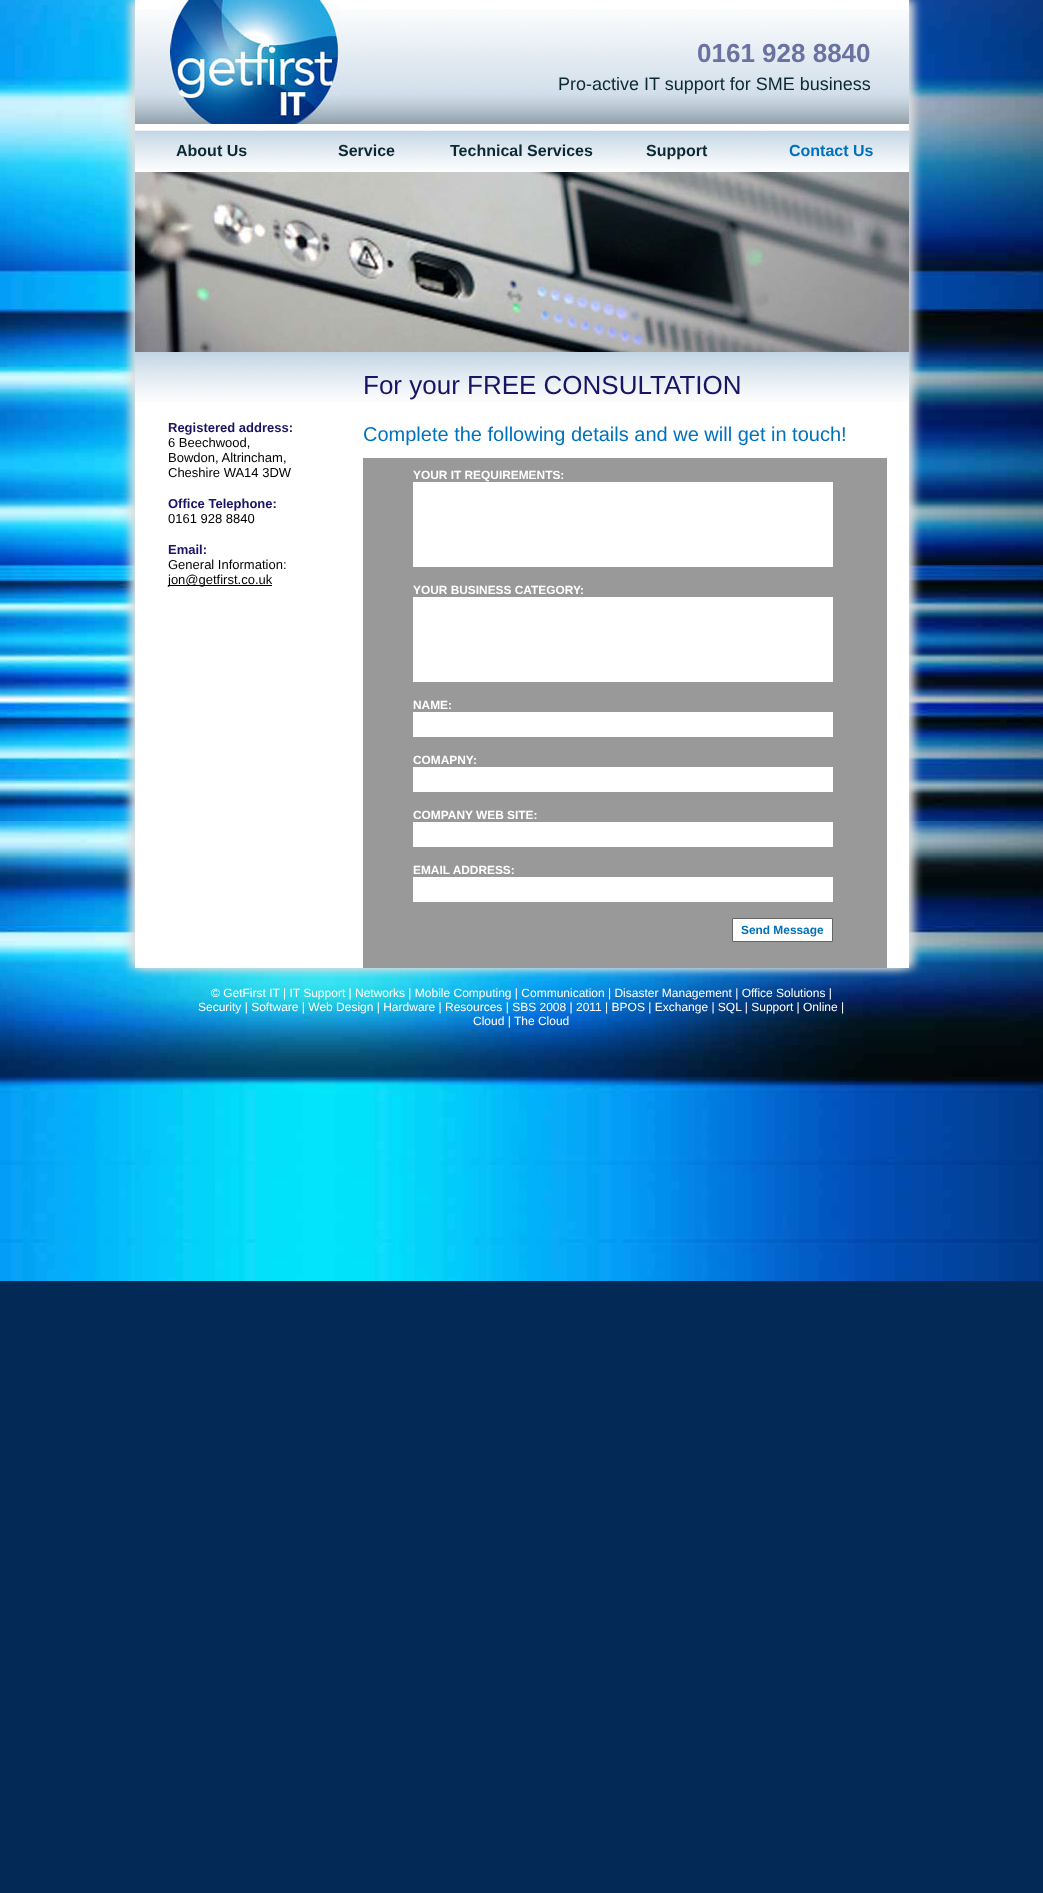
async function draw(canvas) {
	canvas.width = 1043;
	canvas.height = 1893;
	const c = canvas.getContext('2d');
	c.miterLimit = 4;
	c.fontKerning = 'normal';
	async function loadImage(src) {
		const img = new Image();
		img.src = src;
		await img.decode();
		return img;
	}

	c.fillStyle = '#032956';
	c.fillRect(0, 0, 1043, 1893);
	c.drawImage(await loadImage('img1.png'), 0, 0, 1043, 1281);
	c.fillStyle = '#ddd';
	c.filter = 'blur(5px)';
	c.beginPath();
	c.rect(130, 0, 774, 968);
	c.fill();
	c.filter = 'none';
	c.filter = 'blur(5px)';
	c.beginPath();
	c.rect(140, 0, 774, 968);
	c.fill();
	c.filter = 'none';
	c.fillStyle = '#fff';
	c.fillRect(135, 0, 774, 968);
	c.drawImage(await loadImage('img2.png'), 135, 9, 774, 115);
	c.drawImage(await loadImage('img3.png'), 170, 0, 169, 124);
	c.font = 'bold 26px Liberation Sans';
	c.fillStyle = '#6a72a2';
	c.fillText('0161 928 8840', 697, 62);
	c.font = '18px Liberation Sans';
	c.fillStyle = '#0c2833';
	c.fillText('Pro-active IT support for SME business', 558, 90);
	c.drawImage(await loadImage('img4.png'), 135, 130, 774, 41);
	c.font = 'bold 16px Liberation Sans';
	for (const [text, x, y] of [
		['About Us', 176, 156],
		['Service', 338, 156],
		['Technical Services', 450, 156],
		['Support', 646, 156],
	]) {
		c.fillText(text, x, y);
	}
	c.fillStyle = '#0071bc';
	c.fillText('Contact Us', 789, 156);
	c.drawImage(await loadImage('img5.png'), 135, 172, 774, 180);
	c.drawImage(await loadImage('img6.png'), 135, 352, 774, 50);
	c.font = 'bold 13px Liberation Sans';
	c.fillStyle = '#1b1464';
	c.fillText('Registered address:', 168, 432);
	c.font = '13px Liberation Sans';
	c.fillStyle = '#000';
	for (const [text, x, y] of [
		['6 Beechwood,', 168, 447],
		['Bowdon, Altrincham,', 168, 462],
		['Cheshire WA14 3DW', 168, 477],
	]) {
		c.fillText(text, x, y);
	}
	c.font = 'bold 13px Liberation Sans';
	c.fillStyle = '#1b1464';
	c.fillText('Office Telephone:', 168, 508);
	c.font = '13px Liberation Sans';
	c.fillStyle = '#000';
	c.fillText('0161 928 8840', 168, 523);
	c.font = 'bold 13px Liberation Sans';
	c.fillStyle = '#1b1464';
	c.fillText('Email:', 168, 554);
	c.font = '13px Liberation Sans';
	c.fillStyle = '#000';
	c.fillText('General Information:', 168, 569);
	c.fillRect(168, 585, 104, 1);
	c.fillText('jon@getfirst.co.uk', 168, 584);
	c.font = '26px Liberation Sans';
	c.fillStyle = '#1b1464';
	c.fillText('For your FREE CONSULTATION', 363, 394);
	c.font = '20px Liberation Sans';
	c.fillStyle = '#0071bc';
	c.fillText('Complete the following details and we will get in touch!', 363, 441);
	c.fillStyle = '#999';
	c.fillRect(363, 458, 524, 510);
	c.font = 'bold 11.9px Liberation Sans';
	c.fillStyle = '#fff';
	c.fillText('YOUR IT REQUIREMENTS:', 413, 479);
	c.fillRect(413, 482, 420, 85);
	c.fillText('YOUR BUSINESS CATEGORY:', 413, 594);
	c.fillRect(413, 597, 420, 85);
	c.fillText('NAME:', 413, 709);
	c.fillRect(413, 712, 420, 25);
	c.fillText('COMAPNY:', 413, 764);
	c.fillRect(413, 767, 420, 25);
	c.fillText('COMPANY WEB SITE:', 413, 819);
	c.fillRect(413, 822, 420, 25);
	c.fillText('EMAIL ADDRESS:', 413, 874);
	c.fillRect(413, 877, 420, 25);
	c.beginPath();
	c.rect(732.5, 918.5, 100, 23);
	c.fill();
	c.strokeStyle = '#666';
	c.stroke();
	c.fillStyle = '#0071bc';
	c.fillText('Send Message', 741, 934);
	c.font = '12px Liberation Sans';
	c.fillStyle = '#fff';
	for (const [text, x, y] of [
		['© GetFirst IT | IT Support | Networks | Mobile Computing | Communication | Disaster Management | Office Solutions |', 211, 997],
		['Security | Software | Web Design | Hardware | Resources | SBS 2008 | 2011 | BPOS | Exchange | SQL | Support | Online |', 198, 1011],
		['Cloud | The Cloud', 473, 1025],
	]) {
		c.fillText(text, x, y);
	}
}

draw(document.querySelector('canvas'));
